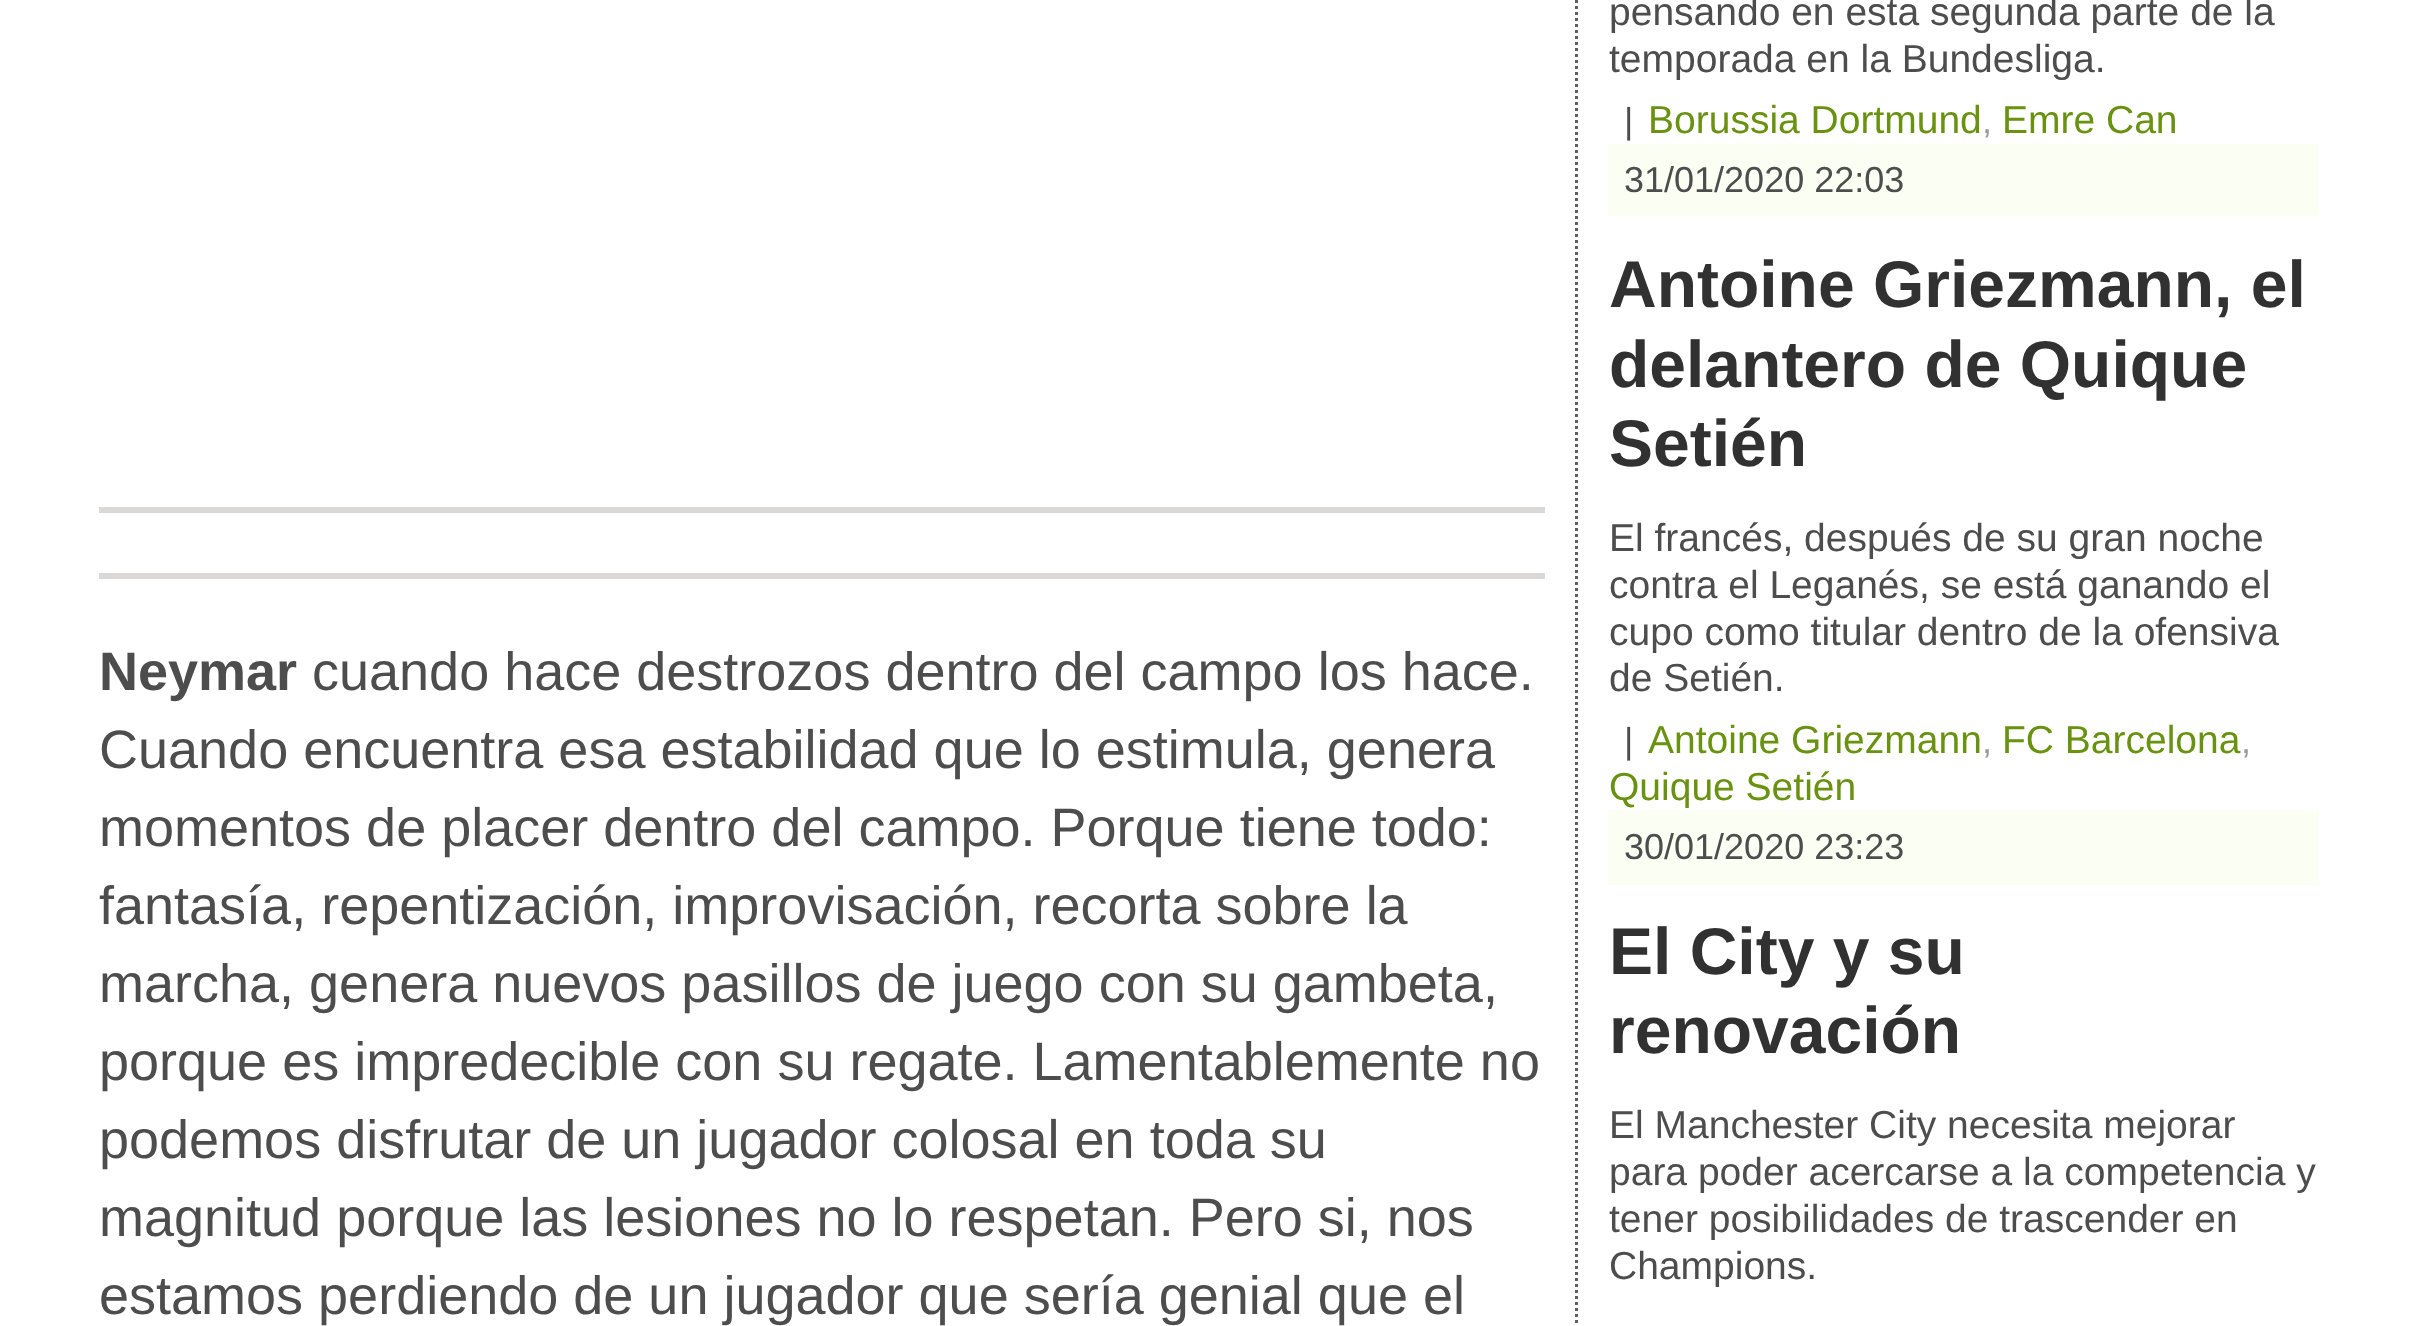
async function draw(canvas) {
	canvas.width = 2416;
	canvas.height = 1326;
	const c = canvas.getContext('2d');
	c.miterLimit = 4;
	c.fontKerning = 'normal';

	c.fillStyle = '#fff';
	c.fillRect(0, 0, 2416, 1326);
	c.beginPath();
	c.moveTo(1576.5, -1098);
	c.lineTo(1576.5, 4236);
	c.strokeStyle = '#605f5f';
	c.lineWidth = 3;
	c.setLineDash([3, 3]);
	c.stroke();
	c.fillStyle = '#d9d8d7';
	c.fillRect(99, 507, 1446, 6);
	c.fillRect(99, 573, 1446, 6);
	c.font = 'bold 54px Liberation Sans';
	c.fillStyle = '#4d4d4d';
	c.fillText('Neymar', 99, 690);
	c.font = '54px Liberation Sans';
	for (const [text, x, y] of [
		['cuando hace destrozos dentro del campo los hace.', 312, 690],
		['Cuando encuentra esa estabilidad que lo estimula, genera', 99, 768],
		['momentos de placer dentro del campo. Porque tiene todo:', 99, 846],
		['fantasía, repentización, improvisación, recorta sobre la', 99, 924],
		['marcha, genera nuevos pasillos de juego con su gambeta,', 99, 1002],
		['porque es impredecible con su regate. Lamentablemente no', 99, 1080],
		['podemos disfrutar de un jugador colosal en toda su', 99, 1158],
		['magnitud porque las lesiones no lo respetan. Pero si, nos', 99, 1236],
		['estamos perdiendo de un jugador que sería genial que el', 99, 1314],
	]) {
		c.fillText(text, x, y);
	}
	c.font = '39px Liberation Sans';
	c.fillText('pensando en esta segunda parte de la', 1609, 25);
	c.fillText('temporada en la Bundesliga.', 1609, 72);
	c.font = '36px Liberation Sans';
	c.fillText('|', 1624, 133);
	c.font = '39px Liberation Sans';
	c.fillStyle = '#699210';
	c.fillText('Borussia Dortmund', 1648, 133);
	c.font = '36px Liberation Sans';
	c.fillStyle = '#999';
	c.fillText(',', 1982, 133);
	c.font = '39px Liberation Sans';
	c.fillStyle = '#699210';
	c.fillText('Emre Can', 2002, 133);
	c.fillStyle = '#fbfef2';
	c.fillRect(1608, 144, 711, 72);
	c.font = '36px Liberation Sans';
	c.fillStyle = '#4d4d4d';
	c.fillText('31/01/2020 22:03', 1624, 192);
	c.font = 'bold 66px Liberation Sans';
	c.fillStyle = '#313131';
	for (const [text, x, y] of [
		['Antoine Griezmann, el', 1609, 307],
		['delantero de Quique', 1609, 387],
		['Setién', 1609, 466],
	]) {
		c.fillText(text, x, y);
	}
	c.font = '39px Liberation Sans';
	c.fillStyle = '#4d4d4d';
	for (const [text, x, y] of [
		['El francés, después de su gran noche', 1609, 551],
		['contra el Leganés, se está ganando el', 1609, 598],
		['cupo como titular dentro de la ofensiva', 1609, 645],
		['de Setién.', 1609, 691],
	]) {
		c.fillText(text, x, y);
	}
	c.font = '36px Liberation Sans';
	c.fillText('|', 1624, 753);
	c.font = '39px Liberation Sans';
	c.fillStyle = '#699210';
	c.fillText('Antoine Griezmann', 1648, 753);
	c.font = '36px Liberation Sans';
	c.fillStyle = '#999';
	c.fillText(',', 1982, 753);
	c.font = '39px Liberation Sans';
	c.fillStyle = '#699210';
	c.fillText('FC Barcelona', 2002, 753);
	c.font = '36px Liberation Sans';
	c.fillStyle = '#999';
	c.fillText(',', 2241, 753);
	c.font = '39px Liberation Sans';
	c.fillStyle = '#699210';
	c.fillText('Quique Setién', 1609, 800);
	c.fillStyle = '#fbfef2';
	c.fillRect(1608, 810, 711, 75);
	c.font = '36px Liberation Sans';
	c.fillStyle = '#4d4d4d';
	c.fillText('30/01/2020 23:23', 1624, 859);
	c.font = 'bold 66px Liberation Sans';
	c.fillStyle = '#313131';
	c.fillText('El City y su', 1609, 974);
	c.fillText('renovación', 1609, 1053);
	c.font = '39px Liberation Sans';
	c.fillStyle = '#4d4d4d';
	for (const [text, x, y] of [
		['El Manchester City necesita mejorar', 1609, 1138],
		['para poder acercarse a la competencia y', 1609, 1185],
		['tener posibilidades de trascender en', 1609, 1232],
		['Champions.', 1609, 1279],
	]) {
		c.fillText(text, x, y);
	}
}

draw(document.querySelector('canvas'));
